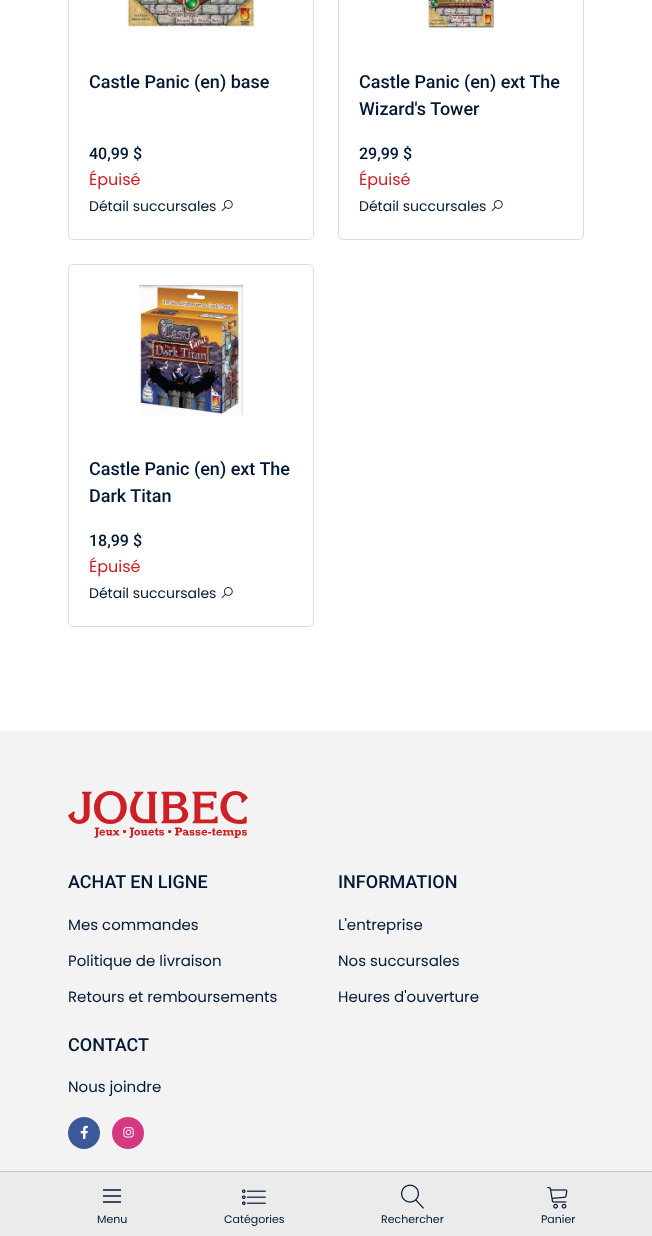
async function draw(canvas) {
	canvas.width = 652;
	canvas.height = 1236;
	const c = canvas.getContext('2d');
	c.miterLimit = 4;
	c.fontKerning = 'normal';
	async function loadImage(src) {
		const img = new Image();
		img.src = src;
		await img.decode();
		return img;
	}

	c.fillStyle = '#fff';
	c.fillRect(0, 0, 652, 1236);
	c.beginPath();
	c.roundRect(68.5, -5.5, 245, 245, 4.5);
	c.strokeStyle = '#ddd';
	c.stroke();
	c.drawImage(await loadImage('img1.png'), 126, 0, 130, 28);
	c.font = '500 18px Roboto';
	c.fillStyle = '#011936';
	c.fillText('Castle Panic (en) base', 89, 88);
	c.font = '500 16px Roboto';
	c.fillText('40,99 $', 89, 159);
	c.font = '16px Poppins';
	c.fillStyle = '#cb2026';
	c.fillText('Épuisé', 89, 185);
	c.font = '14px Poppins';
	c.fillStyle = '#011936';
	c.fillText('Détail succursales', 89, 211);
	c.drawImage(await loadImage('img2.png'), 221, 200, 12, 12);
	c.beginPath();
	c.roundRect(338.5, -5.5, 245, 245, 4.5);
	c.stroke();
	c.drawImage(await loadImage('img3.png'), 428, 0, 66, 28);
	c.font = '500 18px Roboto';
	c.fillText('Castle Panic (en) ext The', 359, 88);
	c.fillText('Wizard\'s Tower', 359, 115);
	c.font = '500 16px Roboto';
	c.fillText('29,99 $', 359, 159);
	c.font = '16px Poppins';
	c.fillStyle = '#cb2026';
	c.fillText('Épuisé', 359, 185);
	c.font = '14px Poppins';
	c.fillStyle = '#011936';
	c.fillText('Détail succursales', 359, 211);
	c.drawImage(await loadImage('img2.png'), 491, 200, 12, 12);
	c.beginPath();
	c.roundRect(68.5, 264.5, 245, 362, 4.5);
	c.stroke();
	c.drawImage(await loadImage('img4.png'), 139, 285, 104, 130);
	c.font = '500 18px Roboto';
	c.fillText('Castle Panic (en) ext The', 89, 475);
	c.fillText('Dark Titan', 89, 502);
	c.font = '500 16px Roboto';
	c.fillText('18,99 $', 89, 546);
	c.font = '16px Poppins';
	c.fillStyle = '#cb2026';
	c.fillText('Épuisé', 89, 572);
	c.font = '14px Poppins';
	c.fillStyle = '#011936';
	c.fillText('Détail succursales', 89, 598);
	c.drawImage(await loadImage('img2.png'), 221, 587, 12, 12);
	c.fillStyle = '#f3f3f3';
	c.fillRect(0, 731, 652, 440);
	c.drawImage(await loadImage('img5.png'), 68, 791, 180, 47);
	c.font = '500 18px Roboto';
	c.fillStyle = '#011936';
	c.fillText('ACHAT EN LIGNE', 68, 888);
	c.font = '15px Poppins';
	for (const [text, x, y] of [
		['Mes commandes', 68, 930],
		['Politique de livraison', 68, 966],
		['Retours et remboursements', 68, 1002],
	]) {
		c.fillText(text, x, y);
	}
	c.font = '500 18px Roboto';
	c.fillText('INFORMATION', 338, 888);
	c.font = '15px Poppins';
	for (const [text, x, y] of [
		['L\'entreprise', 338, 930],
		['Nos succursales', 338, 966],
		['Heures d\'ouverture', 338, 1002],
	]) {
		c.fillText(text, x, y);
	}
	c.font = '500 18px Roboto';
	c.fillText('CONTACT', 68, 1051);
	c.font = '15px Poppins';
	c.fillText('Nous joindre', 68, 1092);
	c.fillStyle = '#3b5998';
	c.beginPath();
	c.arc(84, 1133, 16, 0, 2 * Math.PI);
	c.fill();
	c.drawImage(await loadImage('img6.png'), 80, 1125, 8, 14);
	c.fillStyle = '#d53982';
	c.beginPath();
	c.arc(128, 1133, 16, 0, 2 * Math.PI);
	c.fill();
	c.drawImage(await loadImage('img7.png'), 123, 1127, 11, 11);
	c.fillStyle = '#ebebeb';
	c.fillRect(0, 1172, 652, 64);
	c.fillStyle = '#cacaca';
	c.fillRect(0, 1171, 652, 1);
	c.drawImage(await loadImage('img8.png'), 103, 1189, 18, 14);
	c.font = '11px Poppins';
	c.fillStyle = '#011936';
	c.fillText('Menu', 97, 1223);
	c.drawImage(await loadImage('img9.png'), 242, 1189, 24, 16);
	c.fillText('Catégories', 224, 1223);
	c.drawImage(await loadImage('img10.png'), 401, 1184, 23, 25);
	c.fillText('Rechercher', 381, 1223);
	c.drawImage(await loadImage('img11.png'), 547, 1187, 21, 22);
	c.fillText('Panier', 541, 1223);
}

draw(document.querySelector('canvas'));
